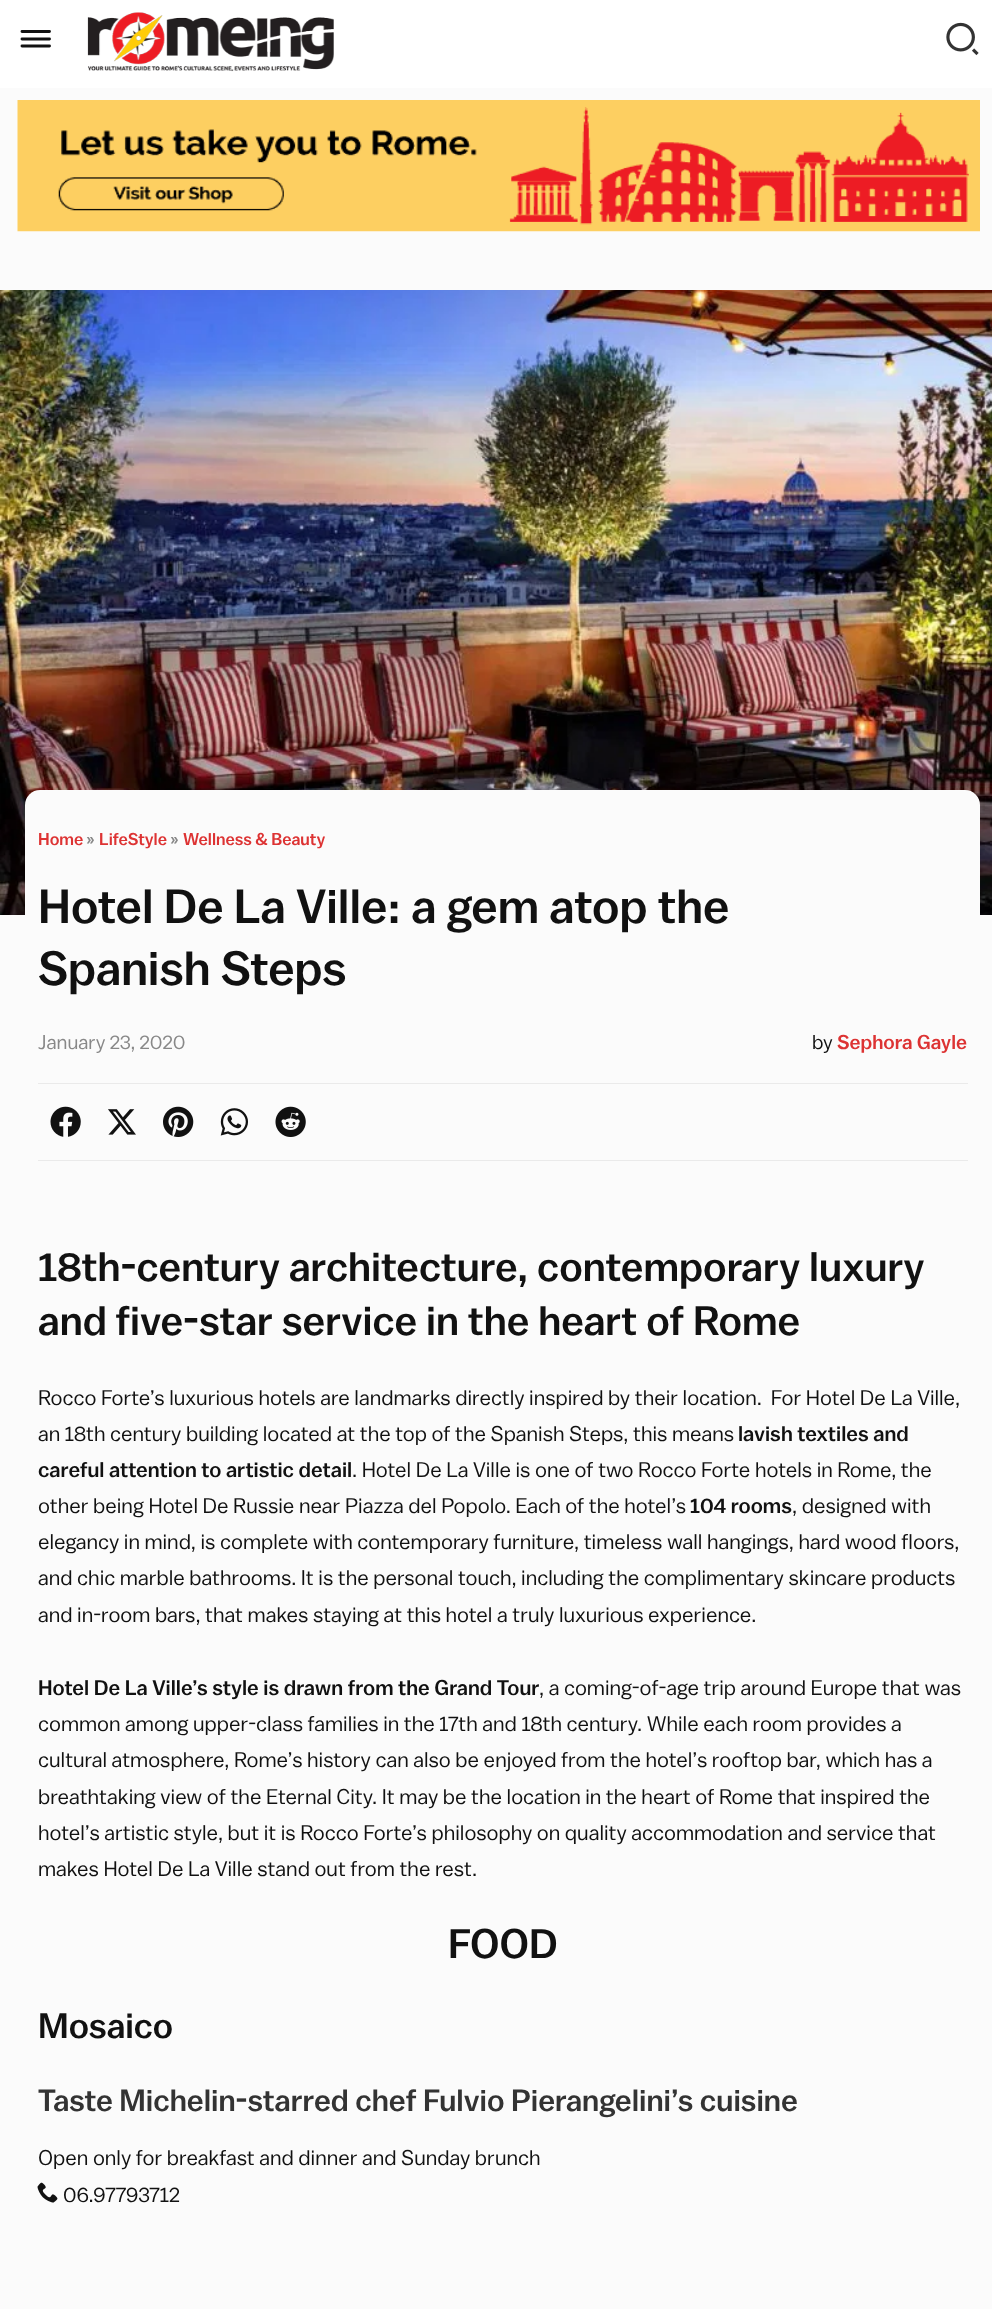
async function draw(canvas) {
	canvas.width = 992;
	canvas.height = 2309;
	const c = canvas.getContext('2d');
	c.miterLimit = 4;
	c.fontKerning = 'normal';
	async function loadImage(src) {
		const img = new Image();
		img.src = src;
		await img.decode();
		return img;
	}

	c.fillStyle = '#fbfbfb';
	c.fillRect(0, 0, 992, 2309);
	c.fillStyle = '#fff';
	c.fillRect(0, 0, 992, 88);
	c.beginPath();
	c.moveTo(22, 31.5);
	c.lineTo(49.5, 31.5);
	c.moveTo(22, 39);
	c.lineTo(49.5, 39);
	c.moveTo(22, 46);
	c.lineTo(49.5, 46);
	c.strokeStyle = '#111';
	c.lineWidth = 2.9;
	c.lineCap = 'round';
	c.stroke();
	c.drawImage(await loadImage('img1.png'), 87, 12, 247, 60);
	c.drawImage(await loadImage('img2.png'), 946, 22, 33, 34);
	c.drawImage(await loadImage('img3.png'), 17, 100, 963, 132);
	c.drawImage(await loadImage('img4.png'), 0, 290, 992, 625);
	c.fillStyle = '#fbfbfb';
	c.beginPath();
	c.roundRect(25, 790, 955, 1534, 15);
	c.fill();
	c.font = '500 17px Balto';
	c.fillStyle = '#d33';
	c.fillText('Home', 38, 845);
	c.fillStyle = '#888';
	c.fillText('»', 86, 845);
	c.fillStyle = '#d33';
	c.fillText('LifeStyle', 99, 845);
	c.fillStyle = '#888';
	c.fillText('»', 170, 845);
	c.fillStyle = '#d33';
	c.fillText('Wellness & Beauty', 183, 845);
	c.font = '500 48px Balto';
	c.fillStyle = '#111';
	c.fillText('Hotel De La Ville: a gem atop the', 38, 923);
	c.fillText('Spanish Steps', 38, 985);
	c.font = '20px Balto';
	c.fillStyle = '#888';
	c.fillText('January 23, 2020', 38, 1049);
	c.fillStyle = '#111';
	c.fillText('by', 812, 1049);
	c.font = '500 20px Balto';
	c.fillStyle = '#d33';
	c.fillText('Sephora Gayle', 837, 1049);
	c.fillStyle = '#eaeaea';
	c.fillRect(38, 1083, 930, 1);
	c.fillRect(38, 1160, 930, 1);
	c.drawImage(await loadImage('img5.png'), 50, 1106, 31, 31);
	c.drawImage(await loadImage('img6.png'), 108, 1109, 28, 26);
	c.drawImage(await loadImage('img7.png'), 163, 1106, 31, 31);
	c.drawImage(await loadImage('img8.png'), 220, 1108, 28, 28);
	c.drawImage(await loadImage('img9.png'), 275, 1106, 31, 31);
	c.font = '500 41.25px Balto';
	c.fillStyle = '#111';
	c.fillText('18th-century architecture, contemporary luxury', 38, 1281);
	c.fillText('and five-star service in the heart of Rome', 38, 1335);
	c.font = '21.25px Balto';
	c.fillText('Rocco Forte’s luxurious hotels are landmarks directly inspired by their location.  For Hotel De La Ville,', 38, 1405);
	c.fillText('an 18th century building located at the top of the Spanish Steps, this means', 38, 1441);
	c.font = '500 21.25px Balto';
	c.fillText('lavish textiles and', 738, 1441);
	c.fillText('careful attention to artistic detail', 38, 1477);
	c.font = '21.25px Balto';
	c.fillText('. Hotel De La Ville is one of two Rocco Forte hotels in Rome, the', 352, 1477);
	c.fillText('other being Hotel De Russie near Piazza del Popolo. Each of the hotel’s', 38, 1513);
	c.font = '500 21.25px Balto';
	c.fillText('104 rooms', 690, 1513);
	c.font = '21.25px Balto';
	for (const [text, x, y] of [
		[', designed with', 792, 1513],
		['elegancy in mind, is complete with contemporary furniture, timeless wall hangings, hard wood floors,', 38, 1549],
		['and chic marble bathrooms. It is the personal touch, including the complimentary skincare products', 38, 1585],
		['and in-room bars, that makes staying at this hotel a truly luxurious experience.', 38, 1622],
	]) {
		c.fillText(text, x, y);
	}
	c.font = '500 21.25px Balto';
	c.fillText('Hotel De La Ville’s style is drawn from the Grand Tour', 38, 1695);
	c.font = '21.25px Balto';
	for (const [text, x, y] of [
		[', a coming-of-age trip around Europe that was', 539, 1695],
		['common among upper-class families in the 17th and 18th century. While each room provides a', 38, 1731],
		['cultural atmosphere, Rome’s history can also be enjoyed from the hotel’s rooftop bar, which has a', 38, 1767],
		['breathtaking view of the Eternal City. It may be the location in the heart of Rome that inspired the', 38, 1804],
		['hotel’s artistic style, but it is Rocco Forte’s philosophy on quality accommodation and service that', 38, 1840],
		['makes Hotel De La Ville stand out from the rest.', 38, 1876],
	]) {
		c.fillText(text, x, y);
	}
	c.font = '500 41.25px Balto';
	c.fillText('FOOD', 448, 1958);
	c.font = '500 35.5px Balto';
	c.fillText('Mosaico', 38, 2038);
	c.font = '500 30.7px Balto';
	c.fillStyle = '#333';
	c.fillText('Taste Michelin-starred chef Fulvio Pierangelini’s cuisine', 38, 2111);
	c.font = '21.25px Balto';
	c.fillStyle = '#111';
	c.fillText('Open only for breakfast and dinner and Sunday brunch', 38, 2165);
	c.drawImage(await loadImage('img10.png'), 37, 2182, 21, 21);
	c.fillText('06.97793712', 63, 2202);
}

draw(document.querySelector('canvas'));
